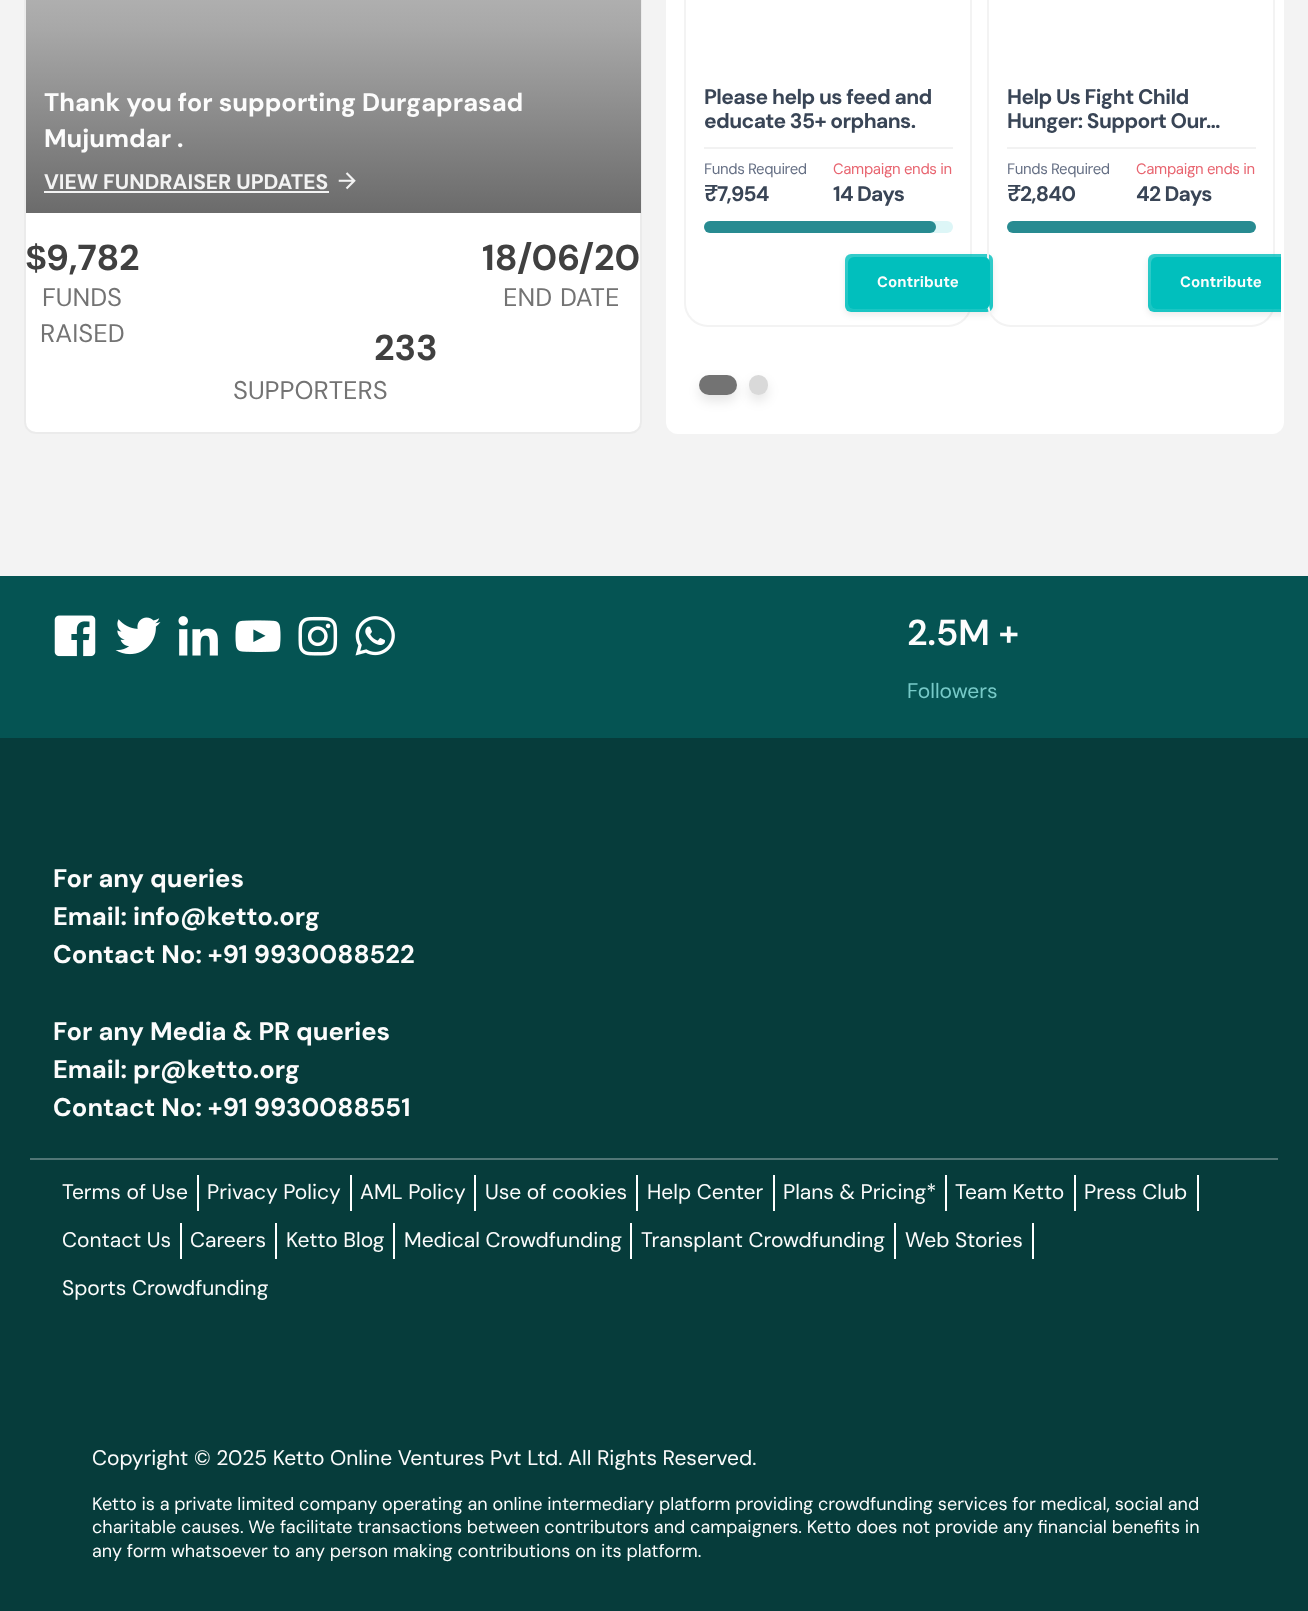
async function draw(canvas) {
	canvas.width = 1308;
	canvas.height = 1611;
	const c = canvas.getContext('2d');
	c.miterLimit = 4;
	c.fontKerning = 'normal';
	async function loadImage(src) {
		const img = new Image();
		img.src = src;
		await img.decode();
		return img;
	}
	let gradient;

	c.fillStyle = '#f3f3f3';
	c.fillRect(0, 0, 1308, 1611);
	c.fillStyle = '#fff';
	c.beginPath();
	c.roundRect(24, -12, 618, 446, 12);
	c.fill();
	c.beginPath();
	c.roundRect(25, -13, 616, 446, 11);
	c.strokeStyle = '#cccccc66';
	c.lineWidth = 2;
	c.stroke();
	gradient = c.createLinearGradient(333, 213, 333, -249);
	gradient.addColorStop(0, '#6b6b6b');
	gradient.addColorStop(0.4, '#a8a8a8');
	gradient.addColorStop(0.8, '#d3d3d3');
	c.fillStyle = gradient;
	c.fillRect(26, 0, 615, 213);
	c.font = 'bold 25.5px "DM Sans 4"';
	c.fillStyle = '#fcfcfc';
	c.fillText('Thank you for supporting Durgaprasad', 44, 111);
	c.fillText('Mujumdar .', 44, 147);
	c.font = 'bold 21px "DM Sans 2"';
	c.fillStyle = '#f3f3f3';
	c.fillText('VIEW FUNDRAISER UPDATES', 44, 189);
	c.fillRect(44, 191, 285, 2);
	c.drawImage(await loadImage('img1.png'), 338, 172, 18, 18);
	c.font = 'bold 36px Liberation Sans';
	c.fillStyle = '#404040';
	c.fillText('$', 26, 270);
	c.font = 'bold 36px DM Sans';
	c.fillText('9,782', 46, 270);
	c.font = '25.5px DM Sans';
	c.fillStyle = '#737373';
	c.fillText('FUNDS', 42, 306);
	c.fillText('RAISED', 40, 342);
	c.font = 'bold 36px DM Sans';
	c.fillStyle = '#404040';
	c.fillText('18/06/20', 482, 270);
	c.wordSpacing = '1px';
	c.font = '25.5px DM Sans';
	c.fillStyle = '#737373';
	c.fillText('END DATE', 503, 306);
	c.wordSpacing = '0px';
	c.font = 'bold 36px DM Sans';
	c.fillStyle = '#404040';
	c.fillText('233', 374, 360);
	c.font = '25.5px DM Sans';
	c.fillStyle = '#737373';
	c.fillText('SUPPORTERS', 233, 399);
	c.fillStyle = '#fff';
	c.beginPath();
	c.roundRect(666, -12, 618, 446, 12);
	c.fill();
	c.beginPath();
	c.roundRect(685, -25, 286, 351, 23);
	c.strokeStyle = '#f3f3f3';
	c.stroke();
	c.letterSpacing = '-0.6px';
	c.font = 'bold 21px "DM Sans 2"';
	c.fillStyle = '#394556';
	c.fillText('Please help us feed and', 704, 104);
	c.fillText('educate 35+ orphans.', 704, 128);
	c.fillStyle = '#f2f2f2';
	c.fillRect(704, 147, 249, 2);
	c.letterSpacing = '-0.4px';
	c.font = '15px DM Sans';
	c.fillStyle = '#667085';
	c.fillText('Funds Required', 704, 174);
	c.letterSpacing = '-0.75px';
	c.font = '600 23px DM Sans';
	c.fillStyle = '#394556';
	c.fillText('₹', 704, 201);
	c.font = 'bold 21px "DM Sans 2"';
	c.fillText('7,954', 717, 201);
	c.letterSpacing = '-0.4px';
	c.font = '15px DM Sans';
	c.fillStyle = '#e86570';
	c.fillText('Campaign ends in', 833, 174);
	c.letterSpacing = '-0.75px';
	c.font = 'bold 21px "DM Sans 2"';
	c.fillStyle = '#394556';
	c.fillText('14 Days', 833, 201);
	c.fillStyle = '#ddf6f7';
	c.beginPath();
	c.roundRect(704, 221, 249, 12, 6);
	c.fill();
	c.fillStyle = '#288b91';
	c.beginPath();
	c.roundRect(704, 221, 232, 12, 6);
	c.fill();
	c.save();
	c.beginPath();
	c.moveTo(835, 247);
	c.lineTo(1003, 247);
	c.lineTo(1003, 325);
	c.lineTo(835, 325);
	c.closePath();
	c.moveTo(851, 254);
	c.lineTo(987, 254);
	c.bezierCurveTo(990.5, 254, 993, 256.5, 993, 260);
	c.lineTo(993, 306);
	c.bezierCurveTo(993, 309.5, 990.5, 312, 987, 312);
	c.lineTo(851, 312);
	c.bezierCurveTo(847.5, 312, 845, 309.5, 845, 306);
	c.lineTo(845, 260);
	c.bezierCurveTo(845, 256.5, 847.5, 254, 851, 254);
	c.closePath();
	c.clip('evenodd');
	c.fillStyle = '#00000014';
	c.filter = 'blur(3px)';
	c.beginPath();
	c.roundRect(845, 257, 148, 58, 6);
	c.fill();
	c.filter = 'none';
	c.restore();
	gradient = c.createLinearGradient(919, 312, 919, 254);
	gradient.addColorStop(0, '#01bfbde6');
	gradient.addColorStop(1, '#01bfbdcc');
	c.fillStyle = gradient;
	c.beginPath();
	c.roundRect(845, 254, 148, 58, 6);
	c.fill();
	c.beginPath();
	c.roundRect(988, -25, 286, 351, 23);
	c.stroke();
	c.fillStyle = '#01bfbd';
	c.beginPath();
	c.roundRect(848, 257, 142, 52, 6);
	c.fill();
	c.letterSpacing = '0px';
	c.font = 'bold 15px "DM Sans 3"';
	c.fillStyle = '#fcfcfc';
	c.fillText('Contribute', 877, 287);
	c.letterSpacing = '-0.6px';
	c.font = 'bold 21px "DM Sans 2"';
	c.fillStyle = '#394556';
	c.fillText('Help Us Fight Child', 1007, 104);
	c.fillText('Hunger: Support Our…', 1007, 128);
	c.fillStyle = '#f2f2f2';
	c.fillRect(1007, 147, 249, 2);
	c.letterSpacing = '-0.4px';
	c.font = '15px DM Sans';
	c.fillStyle = '#667085';
	c.fillText('Funds Required', 1007, 174);
	c.letterSpacing = '-0.75px';
	c.font = '600 23px DM Sans';
	c.fillStyle = '#394556';
	c.fillText('₹', 1007, 201);
	c.font = 'bold 21px "DM Sans 2"';
	c.fillText('2,840', 1020, 201);
	c.letterSpacing = '-0.4px';
	c.font = '15px DM Sans';
	c.fillStyle = '#e86570';
	c.fillText('Campaign ends in', 1136, 174);
	c.letterSpacing = '-0.75px';
	c.font = 'bold 21px "DM Sans 2"';
	c.fillStyle = '#394556';
	c.fillText('42 Days', 1136, 201);
	c.fillStyle = '#288b91';
	c.beginPath();
	c.roundRect(1007, 221, 249, 12, 6);
	c.fill();
	c.save();
	c.beginPath();
	c.rect(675, 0, 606, 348);
	c.clip();
	c.beginPath();
	c.moveTo(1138, 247);
	c.lineTo(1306, 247);
	c.lineTo(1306, 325);
	c.lineTo(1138, 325);
	c.closePath();
	c.moveTo(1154, 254);
	c.lineTo(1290, 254);
	c.bezierCurveTo(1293.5, 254, 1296, 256.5, 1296, 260);
	c.lineTo(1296, 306);
	c.bezierCurveTo(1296, 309.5, 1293.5, 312, 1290, 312);
	c.lineTo(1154, 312);
	c.bezierCurveTo(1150.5, 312, 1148, 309.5, 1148, 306);
	c.lineTo(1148, 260);
	c.bezierCurveTo(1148, 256.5, 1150.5, 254, 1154, 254);
	c.closePath();
	c.clip('evenodd');
	c.fillStyle = '#00000014';
	c.filter = 'blur(3px)';
	c.beginPath();
	c.roundRect(1148, 257, 148, 58, 6);
	c.fill();
	c.filter = 'none';
	c.restore();
	gradient = c.createLinearGradient(1222, 312, 1222, 254);
	gradient.addColorStop(0, '#01bfbde6');
	gradient.addColorStop(1, '#01bfbdcc');
	c.fillStyle = gradient;
	c.beginPath();
	c.roundRect(1148, 254, 133, 58, [6, 0, 0, 6]);
	c.fill();
	c.fillStyle = '#01bfbd';
	c.beginPath();
	c.roundRect(1151, 257, 130, 52, [6, 0, 0, 6]);
	c.fill();
	c.letterSpacing = '0px';
	c.font = 'bold 15px "DM Sans 3"';
	c.fillStyle = '#fcfcfc';
	c.fillText('Contribute', 1180, 287);
	c.fillStyle = '#0000001a';
	c.filter = 'blur(6px)';
	c.beginPath();
	c.roundRect(699, 381, 38, 20, 10);
	c.fill();
	c.filter = 'none';
	c.fillStyle = '#737373';
	c.beginPath();
	c.roundRect(699, 375, 38, 20, 10);
	c.fill();
	c.fillStyle = '#0000001a';
	c.filter = 'blur(6px)';
	c.beginPath();
	c.roundRect(749, 381, 19, 20, 9.5);
	c.fill();
	c.filter = 'none';
	c.fillStyle = '#d9d9d9';
	c.beginPath();
	c.roundRect(749, 375, 19, 20, 9.5);
	c.fill();
	c.fillStyle = '#055453';
	c.fillRect(0, 576, 1308, 162);
	c.drawImage(await loadImage('img2.png'), 54, 615, 42, 42);
	c.drawImage(await loadImage('img3.png'), 115, 617, 46, 38);
	c.drawImage(await loadImage('img4.png'), 178, 616, 40, 40);
	c.drawImage(await loadImage('img5.png'), 235, 620, 46, 32);
	c.drawImage(await loadImage('img6.png'), 298, 616, 40, 40);
	c.drawImage(await loadImage('img7.png'), 355, 616, 40, 40);
	c.font = '600 36px "DM Sans 2"';
	c.fillStyle = '#fcfcfc';
	c.fillText('2.5M +', 907, 645);
	c.font = '21px "DM Sans 2"';
	c.fillStyle = '#77cac8';
	c.fillText('Followers', 907, 698);
	c.fillStyle = '#063c3b';
	c.fillRect(0, 738, 1308, 873);
	c.fillStyle = '#517676';
	c.fillRect(30, 1158, 1248, 2);
	c.font = 'bold 25.5px "DM Sans 4"';
	c.fillStyle = '#fcfcfc';
	for (const [text, x, y] of [
		['For any queries', 53, 887],
		['Email: info@ketto.org', 53, 925],
		['Contact No: +91 9930088522', 53, 963],
		['For any Media & PR queries', 53, 1040],
		['Email: pr@ketto.org', 53, 1078],
		['Contact No: +91 9930088551', 53, 1116],
	]) {
		c.fillText(text, x, y);
	}
	c.fillStyle = '#fff';
	c.fillRect(197, 1175, 2, 36);
	c.font = '21px "DM Sans 2"';
	c.fillStyle = '#fcfcfc';
	c.fillText('Terms of Use', 62, 1199);
	c.fillStyle = '#fff';
	c.fillRect(350, 1175, 2, 36);
	c.fillStyle = '#fcfcfc';
	c.fillText('Privacy Policy', 207, 1199);
	c.fillStyle = '#fff';
	c.fillRect(474, 1175, 2, 36);
	c.fillStyle = '#fcfcfc';
	c.fillText('AML Policy', 360, 1199);
	c.fillStyle = '#fff';
	c.fillRect(636, 1175, 2, 36);
	c.fillStyle = '#fcfcfc';
	c.fillText('Use of cookies', 485, 1199);
	c.fillStyle = '#fff';
	c.fillRect(773, 1175, 2, 36);
	c.fillStyle = '#fcfcfc';
	c.fillText('Help Center', 647, 1199);
	c.fillStyle = '#fff';
	c.fillRect(945, 1175, 2, 36);
	c.fillStyle = '#fcfcfc';
	c.fillText('Plans & Pricing*', 783, 1199);
	c.fillStyle = '#fff';
	c.fillRect(1074, 1175, 2, 36);
	c.fillStyle = '#fcfcfc';
	c.fillText('Team Ketto', 955, 1199);
	c.fillStyle = '#fff';
	c.fillRect(1197, 1175, 2, 36);
	c.fillStyle = '#fcfcfc';
	c.fillText('Press Club', 1084, 1199);
	c.fillStyle = '#fff';
	c.fillRect(180, 1223, 2, 36);
	c.fillStyle = '#fcfcfc';
	c.fillText('Contact Us', 62, 1247);
	c.fillStyle = '#fff';
	c.fillRect(275, 1223, 2, 36);
	c.fillStyle = '#fcfcfc';
	c.fillText('Careers', 190, 1247);
	c.fillStyle = '#fff';
	c.fillRect(393, 1223, 2, 36);
	c.fillStyle = '#fcfcfc';
	c.fillText('Ketto Blog', 286, 1247);
	c.fillStyle = '#fff';
	c.fillRect(630, 1223, 2, 36);
	c.fillStyle = '#fcfcfc';
	c.fillText('Medical Crowdfunding', 404, 1247);
	c.fillStyle = '#fff';
	c.fillRect(894, 1223, 2, 36);
	c.fillStyle = '#fcfcfc';
	c.fillText('Transplant Crowdfunding', 641, 1247);
	c.fillStyle = '#fff';
	c.fillRect(1032, 1223, 2, 36);
	c.fillStyle = '#fcfcfc';
	for (const [text, x, y] of [
		['Web Stories', 905, 1247],
		['Sports Crowdfunding', 62, 1295],
		['Copyright © 2025 Ketto Online Ventures Pvt Ltd. All Rights Reserved.', 92, 1465],
	]) {
		c.fillText(text, x, y);
	}
	c.font = '18px "DM Sans 3"';
	for (const [text, x, y] of [
		['Ketto is a private limited company operating an online intermediary platform providing crowdfunding services for medical, social and', 92, 1510],
		['charitable causes. We facilitate transactions between contributors and campaigners. Ketto does not provide any financial benefits in', 92, 1533],
		['any form whatsoever to any person making contributions on its platform.', 92, 1557],
	]) {
		c.fillText(text, x, y);
	}
}

draw(document.querySelector('canvas'));
